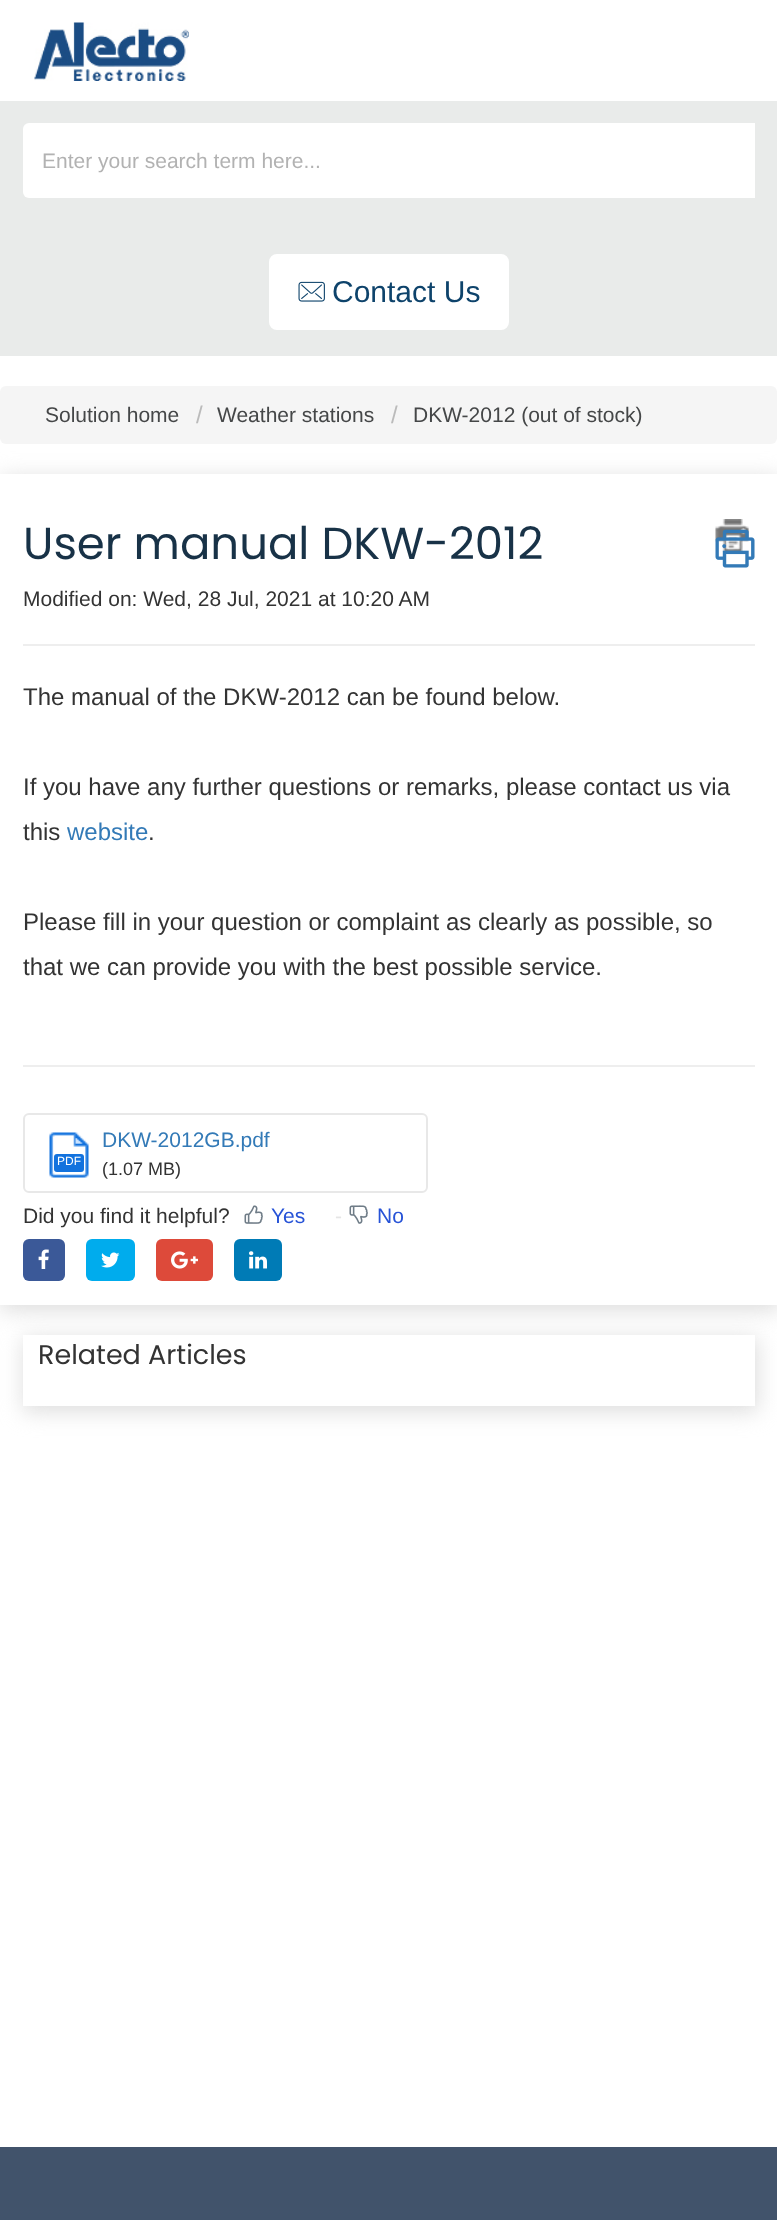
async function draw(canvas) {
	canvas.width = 777;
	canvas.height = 2220;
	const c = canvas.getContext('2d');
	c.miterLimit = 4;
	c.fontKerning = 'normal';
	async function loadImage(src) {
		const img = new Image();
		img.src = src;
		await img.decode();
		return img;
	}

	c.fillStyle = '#fff';
	c.fillRect(0, 0, 777, 2220);
	c.drawImage(await loadImage('img1.png'), 34, 22, 155, 59);
	c.fillStyle = '#e9ebea';
	c.fillRect(0, 101, 777, 255);
	c.fillStyle = '#fff';
	c.beginPath();
	c.roundRect(23, 123, 732, 75, [6, 0, 0, 6]);
	c.fill();
	c.font = '21px Liberation Sans';
	c.fillStyle = '#b2b2b2';
	c.fillText('Enter your search term here...', 42, 168);
	c.fillStyle = '#fff';
	c.beginPath();
	c.roundRect(270, 255, 238, 74, 7);
	c.fill();
	c.strokeStyle = '#fff';
	c.lineWidth = 2;
	c.stroke();
	c.drawImage(await loadImage('img2.png'), 298, 281, 27, 21);
	c.font = '30px Liberation Sans';
	c.fillStyle = '#0e436b';
	c.fillText('Contact Us', 332, 302);
	c.fillStyle = '#f5f5f5';
	c.beginPath();
	c.roundRect(0, 386, 777, 58, 6);
	c.fill();
	c.font = '21px Liberation Sans';
	c.fillStyle = '#454748';
	c.fillText('Solution home', 45, 422);
	c.font = '24px Liberation Sans';
	c.fillStyle = '#bbb';
	c.fillText('/', 196, 423);
	c.font = '21px Liberation Sans';
	c.fillStyle = '#454748';
	c.fillText('Weather stations', 217, 422);
	c.font = '24px Liberation Sans';
	c.fillStyle = '#bbb';
	c.fillText('/', 391, 423);
	c.font = '21px Liberation Sans';
	c.fillStyle = '#454748';
	c.fillText('DKW-2012 (out of stock)', 413, 422);
	c.save();
	c.beginPath();
	c.moveTo(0, 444);
	c.lineTo(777, 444);
	c.lineTo(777, 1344);
	c.lineTo(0, 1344);
	c.closePath();
	c.moveTo(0, 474);
	c.lineTo(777, 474);
	c.lineTo(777, 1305);
	c.lineTo(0, 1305);
	c.closePath();
	c.clip('evenodd');
	c.fillStyle = '#dedede';
	c.filter = 'blur(10.5px)';
	c.beginPath();
	c.rect(0, 477, 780, 834);
	c.fill();
	c.filter = 'none';
	c.restore();
	c.font = '45px Poppins';
	c.fillStyle = '#183247';
	c.fillText('User manual DKW-2012', 23, 559);
	c.drawImage(await loadImage('img3.png'), 715, 519, 34, 33);
	c.drawImage(await loadImage('img4.png'), 715, 529, 40, 39);
	c.font = '21px Liberation Sans';
	c.fillStyle = '#333';
	c.fillText('Modified on: Wed, 28 Jul, 2021 at 10:20 AM', 23, 606);
	c.fillStyle = '#eee';
	c.fillRect(23, 644, 732, 2);
	c.font = '24px Liberation Sans';
	c.fillStyle = '#333';
	for (const [text, x, y] of [
		['The manual of the DKW-2012 can be found below.', 23, 705],
		['If you have any further questions or remarks, please contact us via', 23, 795],
		['this', 23, 840],
	]) {
		c.fillText(text, x, y);
	}
	c.fillStyle = '#337ab7';
	c.fillText('website', 67, 840);
	c.fillStyle = '#333';
	for (const [text, x, y] of [
		['.', 148, 840],
		['Please fill in your question or complaint as clearly as possible, so', 23, 930],
		['that we can provide you with the best possible service.', 23, 975],
	]) {
		c.fillText(text, x, y);
	}
	c.fillStyle = '#eee';
	c.fillRect(23, 1065, 732, 2);
	c.beginPath();
	c.roundRect(24, 1114, 403, 78, 5);
	c.strokeStyle = '#e8e8e8';
	c.stroke();
	c.drawImage(await loadImage('img5.png'), 49, 1132, 40, 46);
	c.fillStyle = '#1272de';
	c.beginPath();
	c.roundRect(54, 1154, 30, 18, 3);
	c.fill();
	c.font = '12px Liberation Sans';
	c.fillStyle = '#fff';
	c.fillText('PDF', 57, 1165);
	c.font = '21px Liberation Sans';
	c.fillStyle = '#337ab7';
	c.fillText('DKW-2012GB.pdf', 102, 1147);
	c.font = '18px Liberation Sans';
	c.fillStyle = '#333';
	c.fillText('(1.07 MB)', 102, 1175);
	c.font = '21px Liberation Sans';
	c.fillText('Did you find it helpful?', 23, 1223);
	c.drawImage(await loadImage('img6.png'), 244, 1205, 19, 19);
	c.fillStyle = '#2753d7';
	c.fillText('Yes', 271, 1223);
	c.fillStyle = '#e5e5e5';
	c.fillText('-', 335, 1223);
	c.drawImage(await loadImage('img7.png'), 349, 1205, 19, 19);
	c.fillStyle = '#2753d7';
	c.fillText('No', 377, 1223);
	c.fillStyle = '#3b5998';
	c.beginPath();
	c.roundRect(23, 1239, 42, 42, 6);
	c.fill();
	c.drawImage(await loadImage('img8.png'), 38, 1249, 11, 20);
	c.fillStyle = '#00aced';
	c.beginPath();
	c.roundRect(86, 1239, 49, 42, 6);
	c.fill();
	c.drawImage(await loadImage('img9.png'), 101, 1252, 19, 16);
	c.fillStyle = '#dd4a3a';
	c.beginPath();
	c.roundRect(156, 1239, 57, 42, 6);
	c.fill();
	c.drawImage(await loadImage('img10.png'), 171, 1251, 27, 18);
	c.fillStyle = '#007bb6';
	c.beginPath();
	c.roundRect(234, 1239, 48, 42, 6);
	c.fill();
	c.drawImage(await loadImage('img11.png'), 249, 1251, 18, 18);
	c.save();
	c.beginPath();
	c.moveTo(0, 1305);
	c.lineTo(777, 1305);
	c.lineTo(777, 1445);
	c.lineTo(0, 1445);
	c.closePath();
	c.moveTo(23, 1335);
	c.lineTo(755, 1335);
	c.lineTo(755, 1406);
	c.lineTo(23, 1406);
	c.closePath();
	c.clip('evenodd');
	c.fillStyle = '#dedede';
	c.filter = 'blur(10.5px)';
	c.beginPath();
	c.rect(23, 1338, 735, 74);
	c.fill();
	c.filter = 'none';
	c.restore();
	c.font = '27px Poppins';
	c.fillStyle = '#333';
	c.fillText('Related Articles', 38, 1364);
	c.fillStyle = '#41536b';
	c.fillRect(0, 2147, 777, 73);
}

draw(document.querySelector('canvas'));
